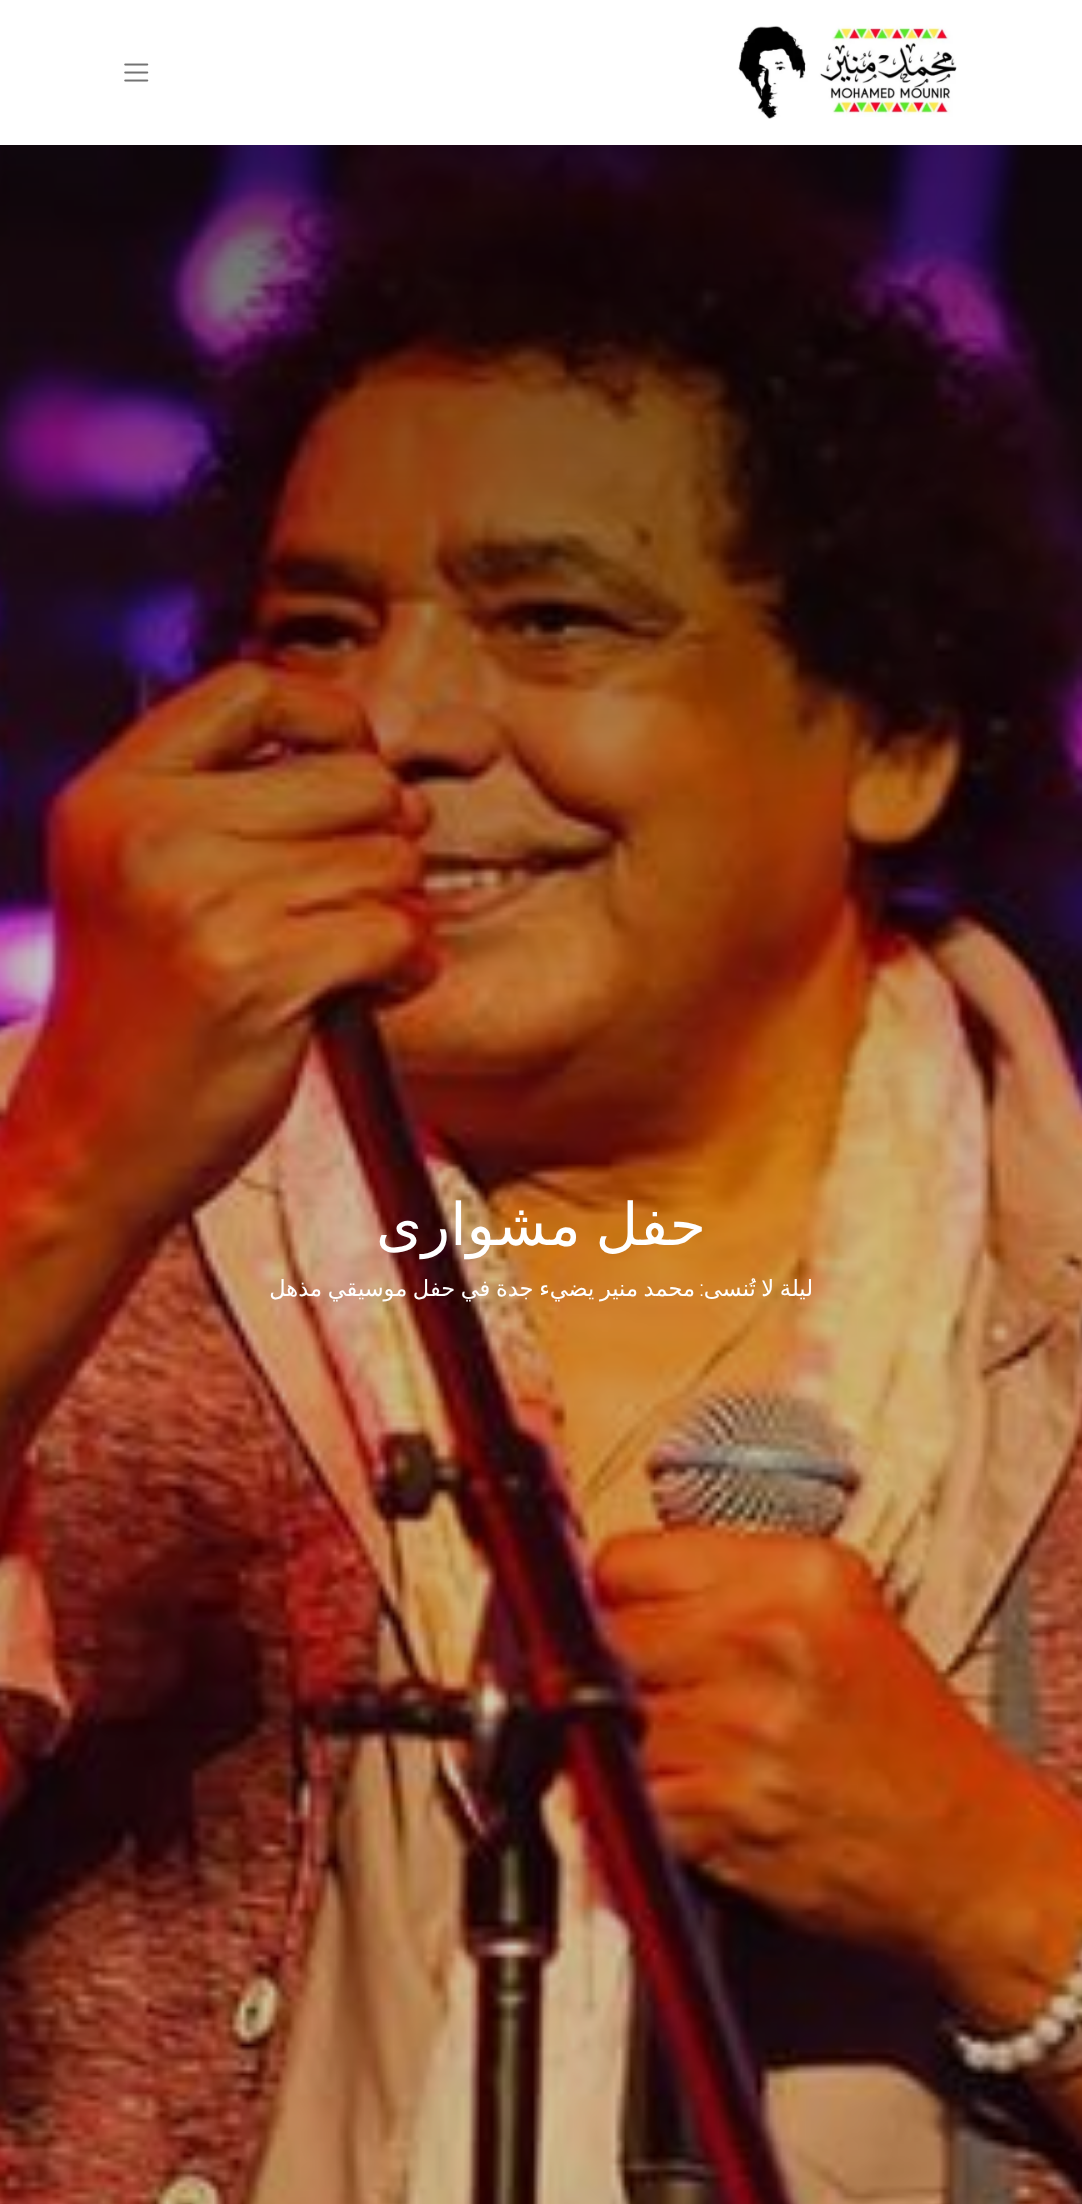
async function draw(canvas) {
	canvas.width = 1082;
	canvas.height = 2204;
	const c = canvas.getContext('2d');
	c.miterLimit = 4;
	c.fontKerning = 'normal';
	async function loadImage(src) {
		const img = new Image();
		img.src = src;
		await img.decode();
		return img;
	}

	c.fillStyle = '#fff';
	c.fillRect(0, 0, 1082, 2204);
	c.drawImage(await loadImage('img1.png'), 738, 25, 219, 94);
	c.drawImage(await loadImage('img2.png'), 124, 63, 25, 19);
	c.drawImage(await loadImage('img3.png'), 0, 145, 1082, 2059);
	c.wordSpacing = '-4px';
	c.direction = 'rtl';
	c.font = '58.75px DejaVu Sans';
	c.fillText('حفل مشوارى', 706, 1245);
	c.wordSpacing = '-1.5px';
	c.font = '22.5px DejaVu Sans';
	c.fillText('ليلة لا تُنسى', 813, 1296);
	c.wordSpacing = '0px';
	c.font = '300 22.5px Roboto';
	c.fillText(':', 704, 1296);
	c.wordSpacing = '-1.5px';
	c.font = '22.5px DejaVu Sans';
	c.fillText('محمد منير يضيء جدة في حفل موسيقي مذهل', 695, 1296);
}

draw(document.querySelector('canvas'));
